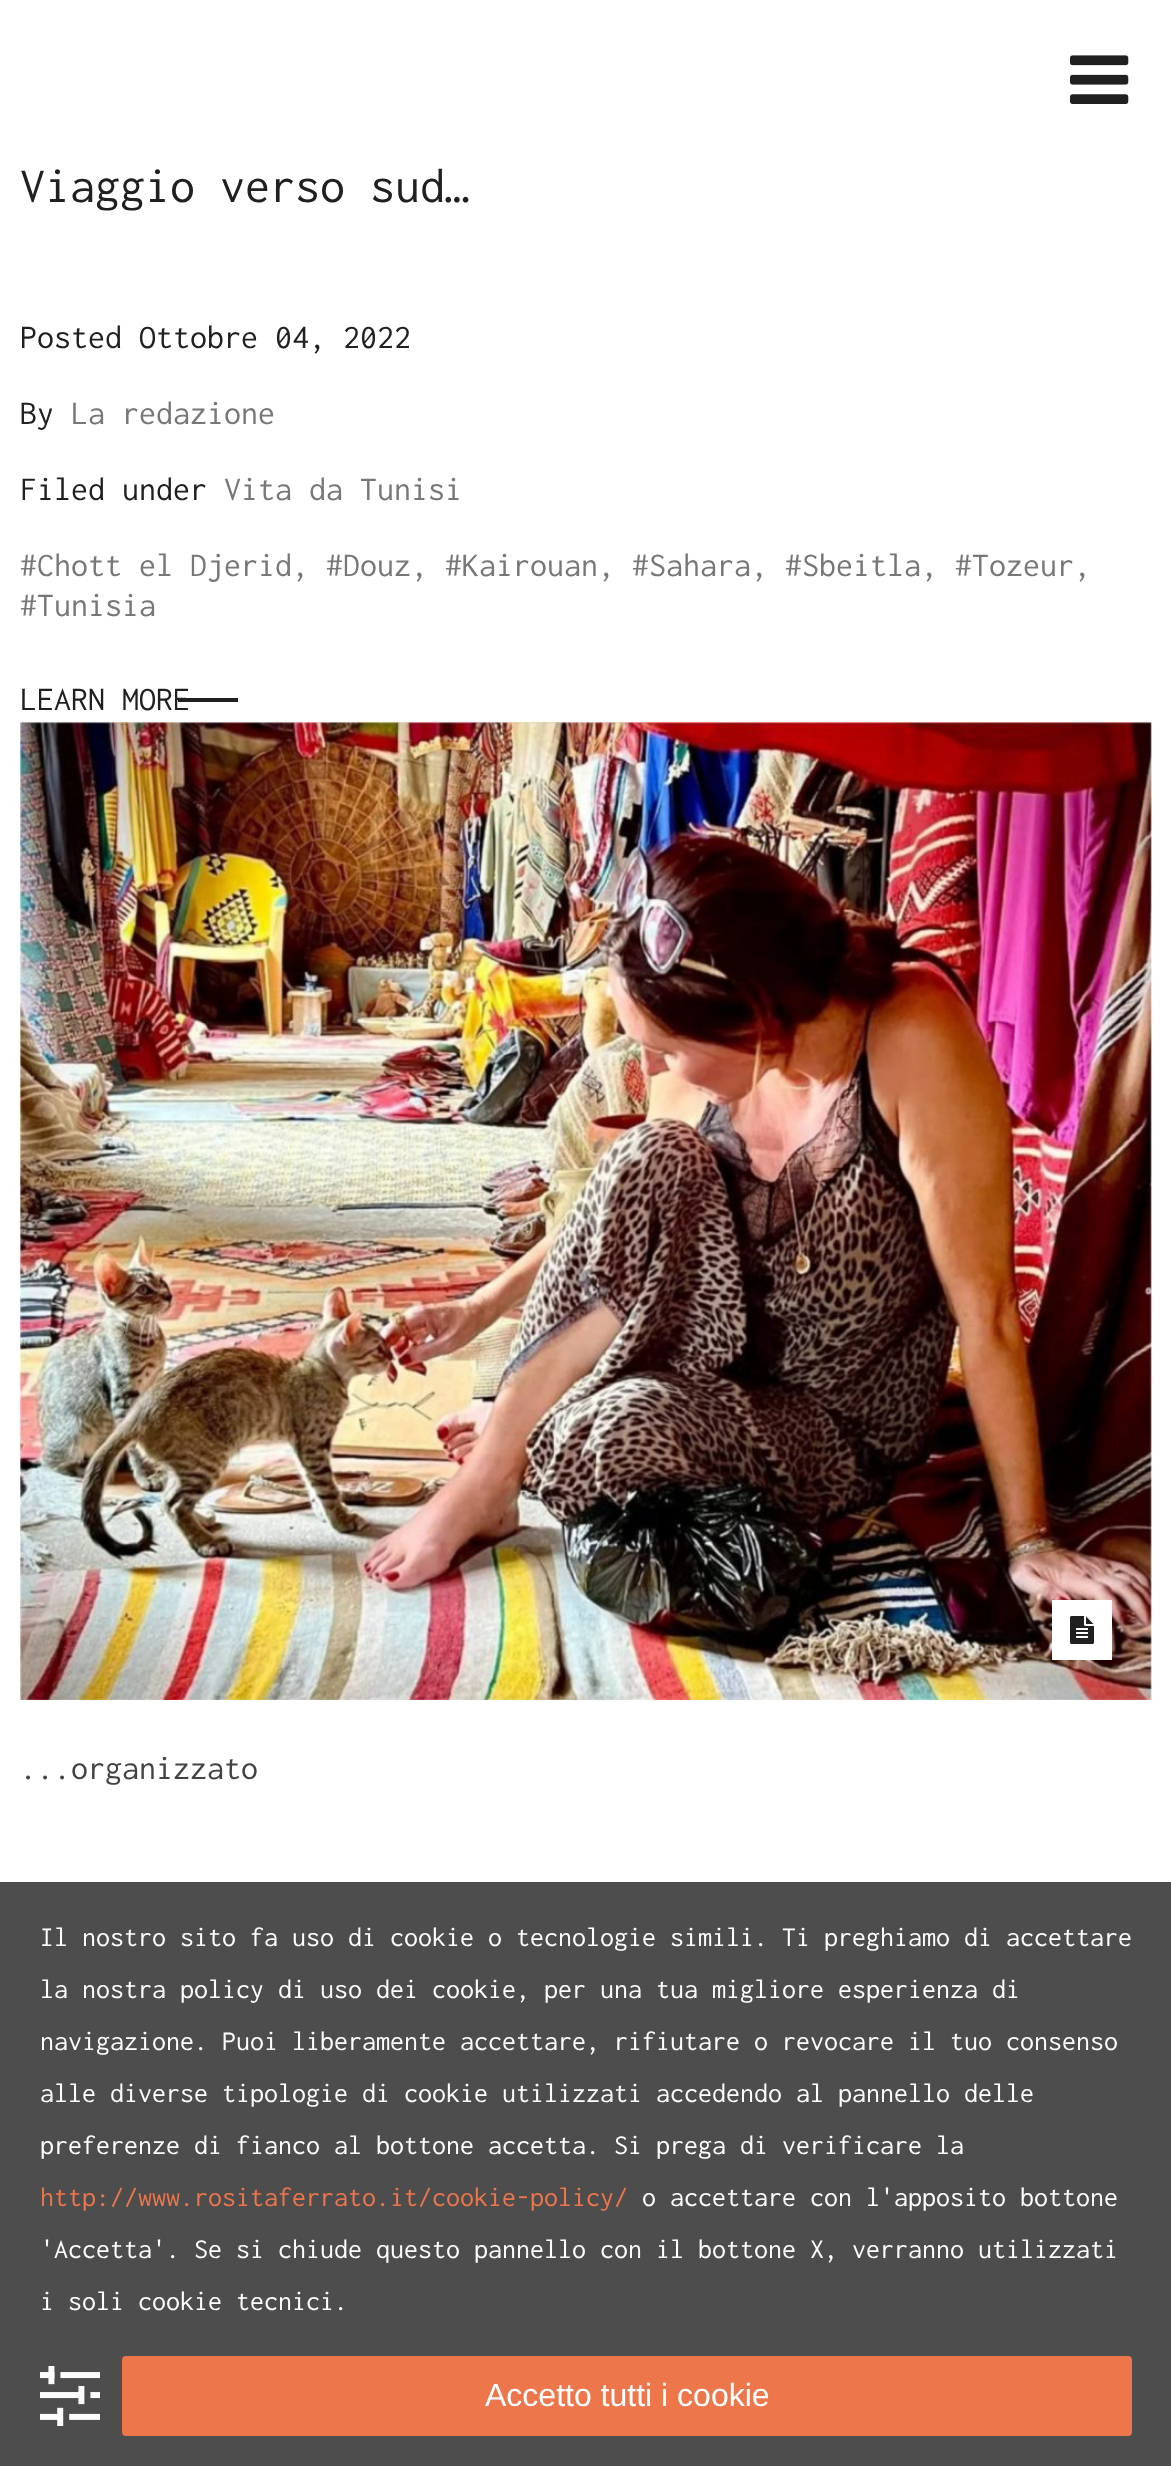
async function draw(canvas) {
	canvas.width = 1171;
	canvas.height = 2466;
	const c = canvas.getContext('2d');
	c.miterLimit = 4;
	c.fontKerning = 'normal';
	async function loadImage(src) {
		const img = new Image();
		img.src = src;
		await img.decode();
		return img;
	}

	c.fillStyle = '#fff';
	c.fillRect(0, 0, 1171, 2466);
	c.fillStyle = '#4d4d4d';
	c.fillRect(0, 1882, 1171, 584);
	c.drawImage(await loadImage('img1.png'), 1070, 55, 59, 49);
	c.font = '50px Inconsolata';
	c.fillStyle = '#202020';
	c.fillText('Viaggio verso sud…', 20, 202);
	c.font = '34px Inconsolata';
	c.fillText('Posted Ottobre 04, 2022', 20, 348);
	c.fillText('By', 20, 424);
	c.fillStyle = '#777';
	c.fillText('La redazione', 71, 424);
	c.fillStyle = '#202020';
	c.fillText('Filed under', 20, 500);
	c.fillStyle = '#777';
	for (const [text, x, y] of [
		['Vita da Tunisi', 224, 500],
		['#Chott el Djerid, #Douz, #Kairouan, #Sahara, #Sbeitla, #Tozeur,', 20, 576],
		['#Tunisia', 20, 616],
	]) {
		c.fillText(text, x, y);
	}
	c.fillStyle = '#202020';
	c.fillText('LEARN MORE', 20, 710);
	c.fillRect(178, 698, 60, 4);
	c.drawImage(await loadImage('img2.png'), 20, 722, 1132, 978);
	c.fillStyle = '#fff';
	c.fillRect(1052, 1600, 60, 60);
	c.drawImage(await loadImage('img3.png'), 1070, 1616, 24, 28);
	c.fillStyle = '#434343';
	c.fillText('...organizzato', 20, 1779);
	c.font = '28px Inconsolata';
	c.fillStyle = '#fff';
	for (const [text, x, y] of [
		['Il nostro sito fa uso di cookie o tecnologie simili. Ti preghiamo di accettare', 40, 1946],
		['la nostra policy di uso dei cookie, per una tua migliore esperienza di', 40, 1998],
		['navigazione. Puoi liberamente accettare, rifiutare o revocare il tuo consenso', 40, 2050],
		['alle diverse tipologie di cookie utilizzati accedendo al pannello delle', 40, 2102],
		['preferenze di fianco al bottone accetta. Si prega di verificare la', 40, 2154],
	]) {
		c.fillText(text, x, y);
	}
	c.fillStyle = '#ed764b';
	c.fillText('http://www.rositaferrato.it/cookie-policy/', 40, 2206);
	c.fillStyle = '#fff';
	for (const [text, x, y] of [
		['o accettare con l\'apposito bottone', 642, 2206],
		['\'Accetta\'. Se si chiude questo pannello con il bottone X, verranno utilizzati', 40, 2258],
		['i soli cookie tecnici.', 40, 2310],
	]) {
		c.fillText(text, x, y);
	}
	c.drawImage(await loadImage('img4.png'), 40, 2366, 60, 60);
	c.fillStyle = '#ed764b';
	c.beginPath();
	c.roundRect(122, 2356, 1010, 80, 4);
	c.fill();
	c.font = '32px Liberation Sans';
	c.fillStyle = '#fff';
	c.fillText('Accetto tutti i cookie', 485, 2406);
}

draw(document.querySelector('canvas'));
